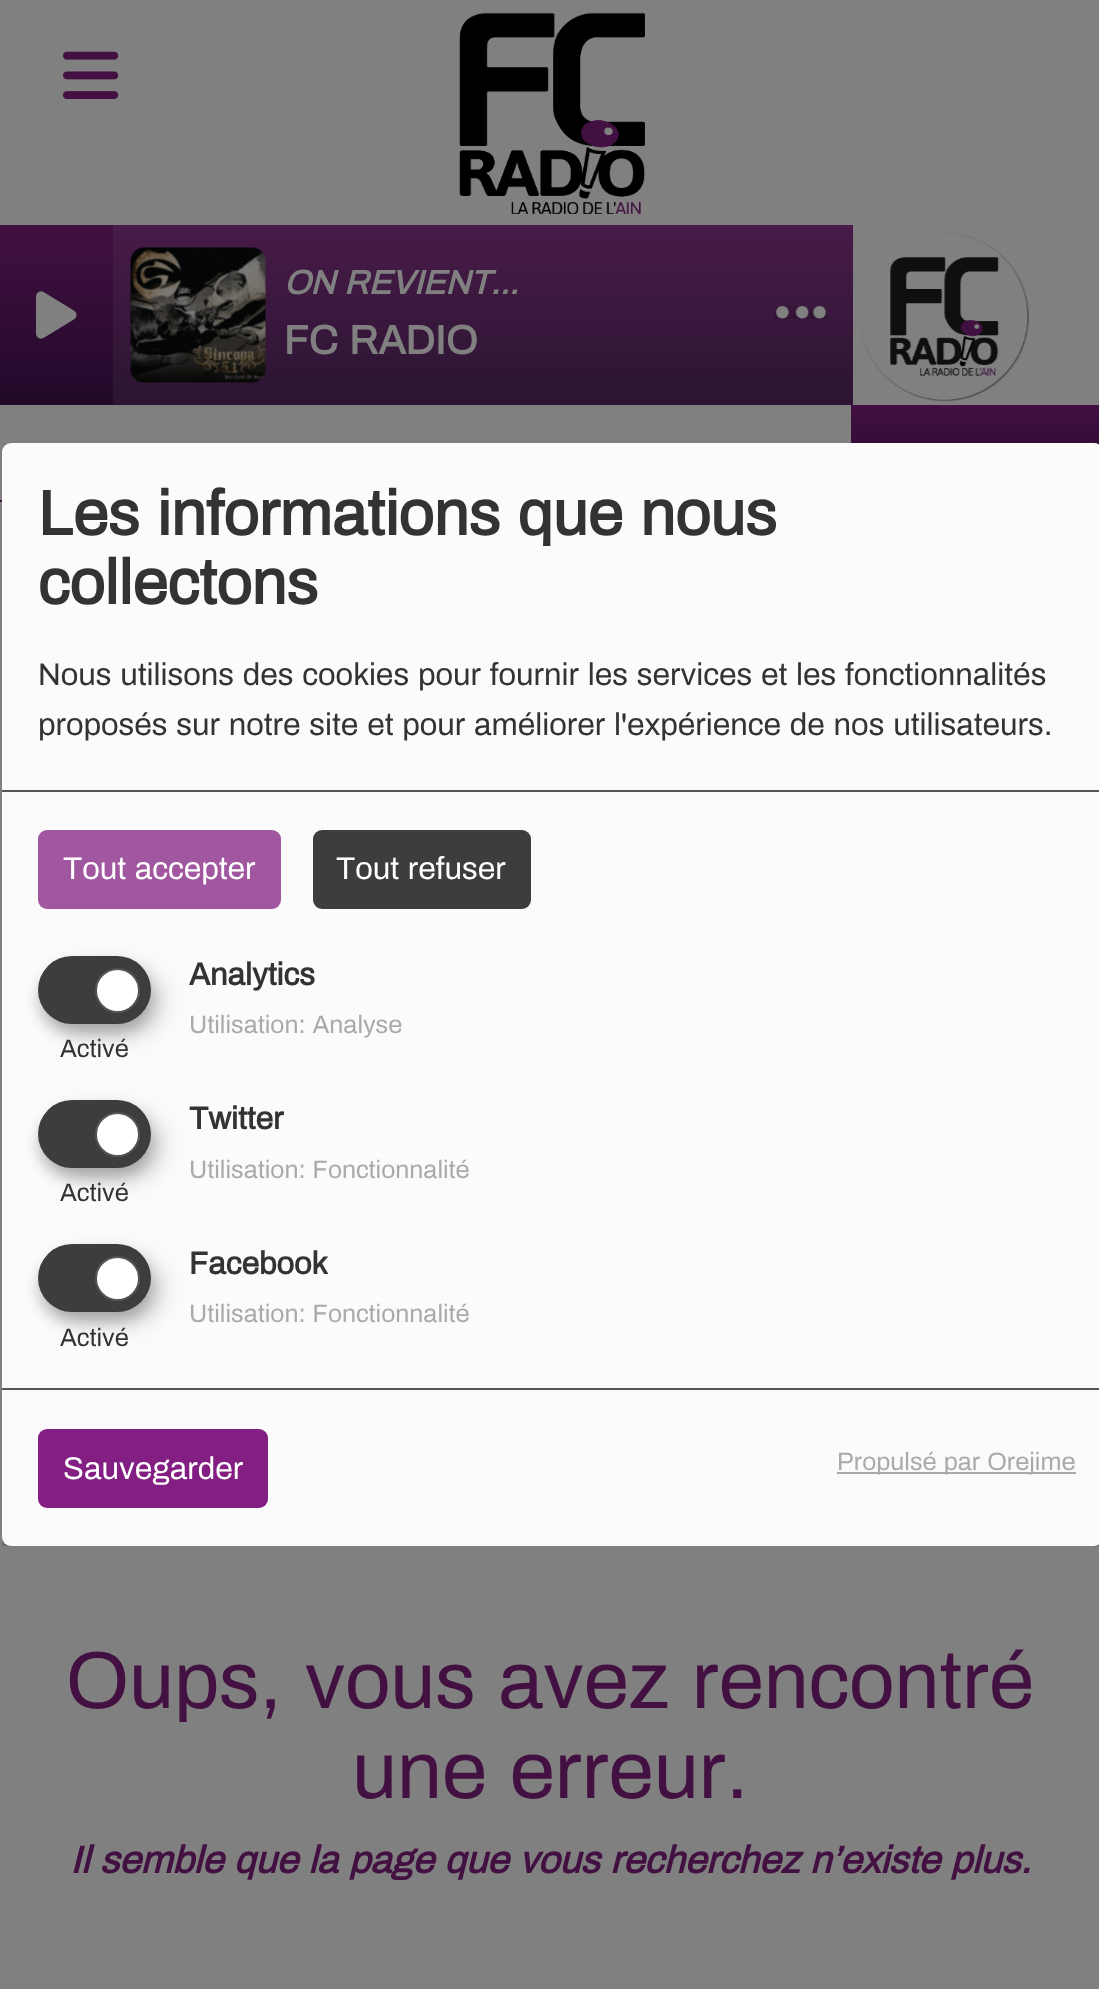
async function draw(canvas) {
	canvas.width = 1099;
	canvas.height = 1989;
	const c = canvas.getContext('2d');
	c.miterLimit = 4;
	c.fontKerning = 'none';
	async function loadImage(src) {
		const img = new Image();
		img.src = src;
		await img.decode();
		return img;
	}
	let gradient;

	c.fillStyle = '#808080';
	c.fillRect(0, 0, 1099, 1989);
	c.drawImage(await loadImage('img1.png'), 63, 51, 56, 48);
	c.drawImage(await loadImage('img2.png'), 459, 12, 186, 202);
	gradient = c.createLinearGradient(550, 225, 550, 405);
	gradient.addColorStop(0, '#421041');
	gradient.addColorStop(1, '#210929');
	c.fillStyle = gradient;
	c.fillRect(0, 225, 113, 180);
	gradient = c.createLinearGradient(550, 225, 550, 405);
	gradient.addColorStop(0, '#481b48');
	gradient.addColorStop(1, '#2b1532');
	c.fillStyle = gradient;
	c.fillRect(113, 225, 654, 180);
	c.fillRect(767, 225, 86, 180);
	c.drawImage(await loadImage('img3.png'), 36, 291, 41, 48);
	c.drawImage(await loadImage('img4.png'), 130, 247, 136, 136);
	c.font = 'italic bold 33.75px Archivo';
	c.fillStyle = '#808080';
	c.fillText('ON REVIENT...', 284, 294);
	c.font = 'bold 40.5px Archivo';
	c.fillText('FC RADIO', 284, 354);
	c.drawImage(await loadImage('img5.png'), 774, 306, 54, 13);
	c.drawImage(await loadImage('img6.png'), 860, 232, 170, 170);
	gradient = c.createLinearGradient(975, 405, 975, 500);
	gradient.addColorStop(0, '#421041');
	gradient.addColorStop(1, '#210929');
	c.fillStyle = gradient;
	c.fillRect(851, 405, 248, 40);
	c.fillStyle = '#421041';
	c.fillRect(0, 500, 2, 2);
	c.save();
	c.beginPath();
	c.rect(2, 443, 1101, 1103);
	c.clip();
	c.fillStyle = '#00000030';
	c.filter = 'blur(11px)';
	c.beginPath();
	c.roundRect(14, 455, 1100, 1102, 9);
	c.fill();
	c.filter = 'none';
	c.fillStyle = '#00000033';
	c.filter = 'blur(7px)';
	c.beginPath();
	c.roundRect(2, 452, 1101, 1103, 9);
	c.fill();
	c.filter = 'none';
	c.restore();
	c.fillStyle = '#fbfbfb';
	c.beginPath();
	c.roundRect(2, 443, 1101, 1103, 9);
	c.fill();
	c.fillStyle = '#555';
	c.fillRect(2, 790, 1097, 2);
	c.font = 'bold 63px Archivo';
	c.fillStyle = '#333';
	c.fillText('Les informations que nous', 38, 535);
	c.fillText('collectons', 38, 604);
	c.font = '31.5px Archivo';
	c.fillText('Nous utilisons des cookies pour fournir les services et les fonctionnalités', 38, 685);
	c.fillText('proposés sur notre site et pour améliorer l\'expérience de nos utilisateurs.', 38, 735);
	c.fillStyle = '#a156a0';
	c.beginPath();
	c.roundRect(38, 830, 243, 79, 9);
	c.fill();
	c.fillStyle = '#fff';
	c.fillText('Tout accepter', 63, 879);
	c.fillStyle = '#3e3d3d';
	c.beginPath();
	c.roundRect(313, 830, 218, 79, 9);
	c.fill();
	c.fillStyle = '#fff';
	c.fillText('Tout refuser', 336, 879);
	c.font = 'bold 31.5px Archivo';
	c.fillStyle = '#333';
	c.fillText('Analytics', 189, 985);
	c.fillStyle = '#00000030';
	c.filter = 'blur(11px)';
	c.beginPath();
	c.roundRect(50, 968, 112, 67, 33.5);
	c.fill();
	c.filter = 'none';
	c.fillStyle = '#00000033';
	c.filter = 'blur(7px)';
	c.beginPath();
	c.roundRect(38, 965, 113, 68, 34);
	c.fill();
	c.filter = 'none';
	c.fillStyle = '#3e3d3d';
	c.beginPath();
	c.roundRect(38, 956, 113, 68, 34);
	c.fill();
	c.fillStyle = '#fff';
	c.beginPath();
	c.arc(117.5, 990.5, 21.5, 0, 2 * Math.PI);
	c.fill();
	c.strokeStyle = '#555';
	c.lineWidth = 2;
	c.stroke();
	c.font = '25.25px Archivo';
	c.fillStyle = '#333';
	c.fillText('Activé', 60, 1057);
	c.fillStyle = '#aaa';
	c.fillText('Utilisation: Analyse', 189, 1033);
	c.font = 'bold 31.5px Archivo';
	c.fillStyle = '#333';
	c.fillText('Twitter', 189, 1129);
	c.fillStyle = '#00000030';
	c.filter = 'blur(11px)';
	c.beginPath();
	c.roundRect(50, 1112, 112, 67, 33.5);
	c.fill();
	c.filter = 'none';
	c.fillStyle = '#00000033';
	c.filter = 'blur(7px)';
	c.beginPath();
	c.roundRect(38, 1109, 113, 68, 34);
	c.fill();
	c.filter = 'none';
	c.fillStyle = '#3e3d3d';
	c.beginPath();
	c.roundRect(38, 1100, 113, 68, 34);
	c.fill();
	c.fillStyle = '#fff';
	c.beginPath();
	c.arc(117.5, 1134.5, 21.5, 0, 2 * Math.PI);
	c.fill();
	c.stroke();
	c.font = '25.25px Archivo';
	c.fillStyle = '#333';
	c.fillText('Activé', 60, 1201);
	c.fillStyle = '#aaa';
	c.fillText('Utilisation: Fonctionnalité', 189, 1178);
	c.font = 'bold 31.5px Archivo';
	c.fillStyle = '#333';
	c.fillText('Facebook', 189, 1274);
	c.fillStyle = '#00000030';
	c.filter = 'blur(11px)';
	c.beginPath();
	c.roundRect(50, 1256, 112, 67, 33.5);
	c.fill();
	c.filter = 'none';
	c.fillStyle = '#00000033';
	c.filter = 'blur(7px)';
	c.beginPath();
	c.roundRect(38, 1253, 113, 68, 34);
	c.fill();
	c.filter = 'none';
	c.fillStyle = '#3e3d3d';
	c.beginPath();
	c.roundRect(38, 1244, 113, 68, 34);
	c.fill();
	c.fillStyle = '#fff';
	c.beginPath();
	c.arc(117.5, 1278.5, 21.5, 0, 2 * Math.PI);
	c.fill();
	c.stroke();
	c.font = '25.25px Archivo';
	c.fillStyle = '#333';
	c.fillText('Activé', 60, 1346);
	c.fillStyle = '#aaa';
	c.fillText('Utilisation: Fonctionnalité', 189, 1322);
	c.fillStyle = '#555';
	c.fillRect(2, 1388, 1097, 2);
	c.fillStyle = '#831f82';
	c.beginPath();
	c.roundRect(38, 1429, 230, 79, 9);
	c.fill();
	c.font = '31.5px Archivo';
	c.fillStyle = '#fff';
	c.fillText('Sauvegarder', 63, 1479);
	c.fillStyle = '#aaa';
	c.fillRect(837, 1472, 239, 2);
	c.font = '25.25px Archivo';
	c.fillText('Propulsé par Orejime', 837, 1470);
	c.font = '81px Archivo';
	c.fillStyle = '#421041';
	c.fillText('Oups, vous avez rencontré', 66, 1708);
	c.fillText('une erreur.', 352, 1798);
	c.font = 'italic bold 38.25px Archivo';
	c.fillText('Il semble que la page que vous recherchez n’existe plus.', 70, 1873);
}

draw(document.querySelector('canvas'));
